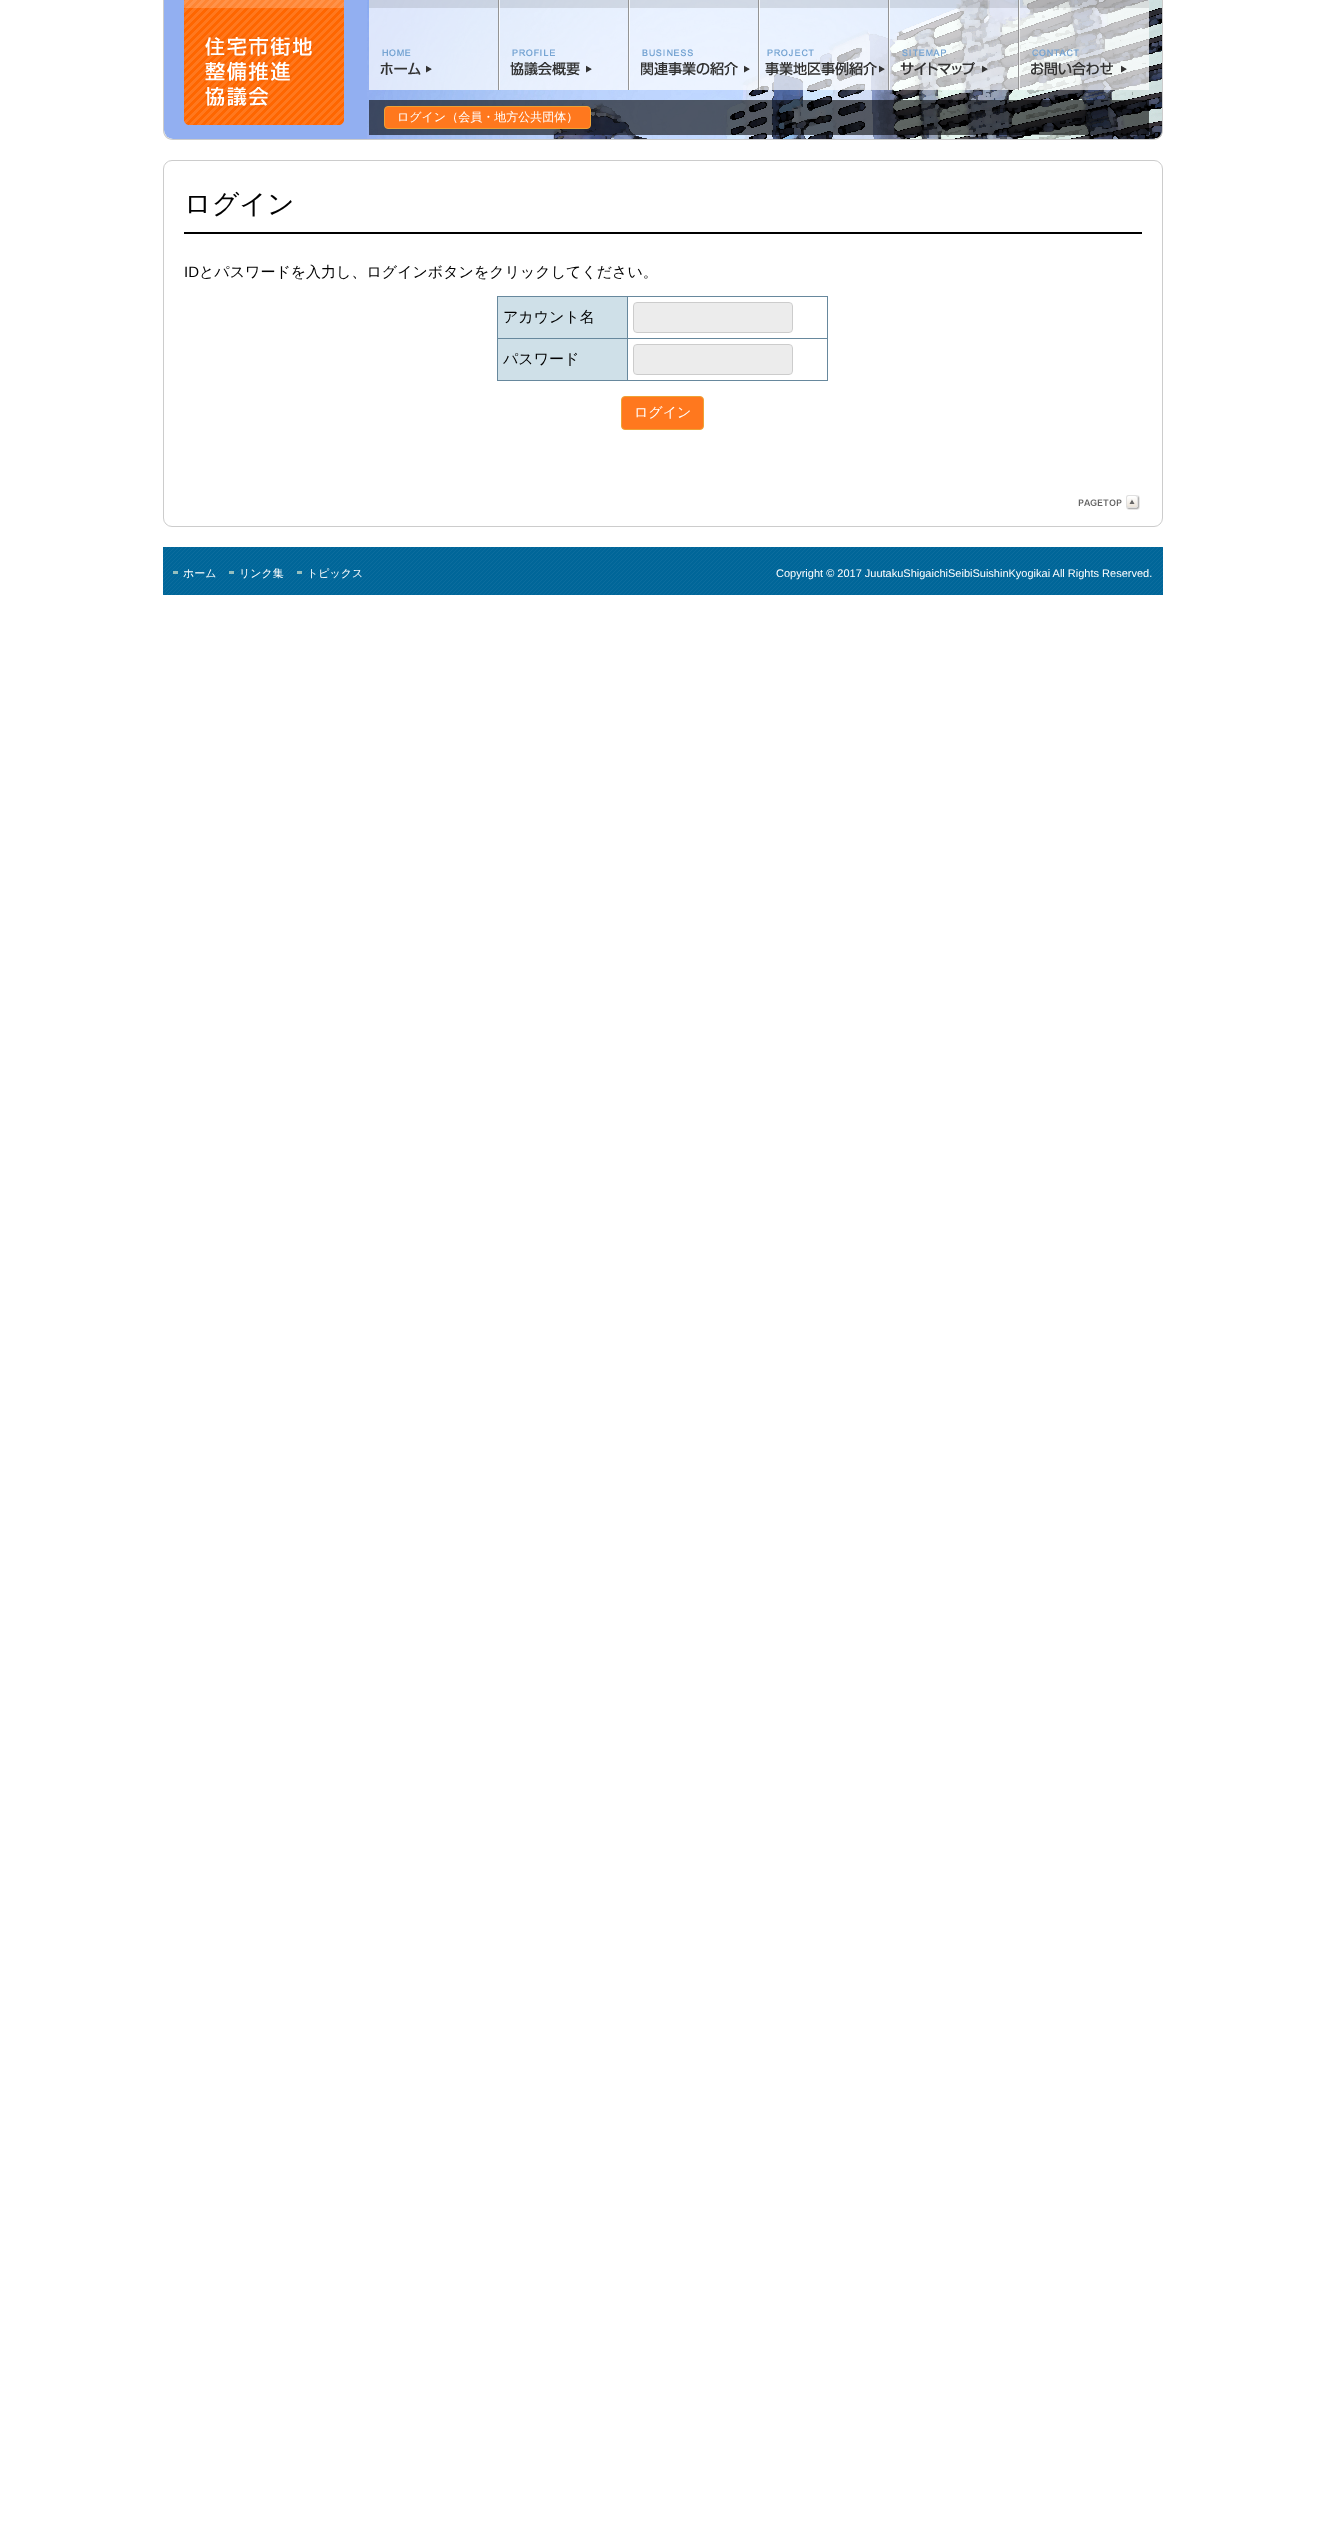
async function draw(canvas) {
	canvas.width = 1325;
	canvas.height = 2534;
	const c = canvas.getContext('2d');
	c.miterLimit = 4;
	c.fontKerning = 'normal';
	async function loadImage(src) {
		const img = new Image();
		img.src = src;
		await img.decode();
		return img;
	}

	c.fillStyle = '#fff';
	c.fillRect(0, 0, 1325, 2534);
	c.fillStyle = '#92aff1';
	c.beginPath();
	c.roundRect(164, 0, 998, 139, [0, 0, 9, 9]);
	c.fill();
	c.drawImage(await loadImage('img1.png'), 367, 0, 795, 139);
	c.fillStyle = '#ccc';
	c.beginPath();
	c.moveTo(163, 0);
	c.lineTo(1163, 0);
	c.lineTo(1163, 130);
	c.bezierCurveTo(1163, 136, 1159, 140, 1153, 140);
	c.lineTo(173, 140);
	c.bezierCurveTo(167, 140, 163, 136, 163, 130);
	c.closePath();
	c.moveTo(164, 0);
	c.lineTo(1162, 0);
	c.lineTo(1162, 130);
	c.bezierCurveTo(1162, 135, 1158, 139, 1153, 139);
	c.lineTo(173, 139);
	c.bezierCurveTo(168, 139, 164, 135, 164, 130);
	c.closePath();
	c.fill('evenodd');
	c.drawImage(await loadImage('img2.png'), 184, 0, 160, 125);
	c.drawImage(await loadImage('img3.png'), 369, 0, 130, 90);
	c.drawImage(await loadImage('img4.png'), 499, 0, 130, 90);
	c.drawImage(await loadImage('img5.png'), 629, 0, 130, 90);
	c.drawImage(await loadImage('img6.png'), 759, 0, 130, 90);
	c.drawImage(await loadImage('img7.png'), 889, 0, 130, 90);
	c.drawImage(await loadImage('img8.png'), 1019, 0, 130, 90);
	c.fillStyle = '#00000099';
	c.fillRect(369, 100, 780, 35);
	c.fillStyle = '#ff781e';
	c.beginPath();
	c.roundRect(384.5, 106.5, 206, 22, 3.5);
	c.fill();
	c.strokeStyle = '#eea236';
	c.stroke();
	c.font = '500 12px WenQuanYi Zen Hei';
	c.fillStyle = '#fff';
	c.fillText('ログイン（会員・地方公共団体）', 397, 121);
	c.beginPath();
	c.roundRect(163.5, 160.5, 999, 366, 8.5);
	c.strokeStyle = '#ccc';
	c.stroke();
	c.fillStyle = '#000';
	c.fillRect(184, 232, 958, 2);
	c.font = '500 27px WenQuanYi Zen Hei';
	c.fillText('ログイン', 184, 213);
	c.font = '15px Liberation Sans';
	c.fillText('ID', 184, 277);
	c.font = '500 15px WenQuanYi Zen Hei';
	c.fillText('とパスワードを入力し、ログインボタンをクリックしてください。', 199, 277);
	for (const [x, y, w, h, color] of [
		[497, 296, 331, 1, '#67889d'],
		[827, 296, 1, 85, '#67889d'],
		[497, 380, 331, 1, '#67889d'],
		[497, 296, 1, 85, '#67889d'],
		[498, 297, 129, 41, '#cfe0e8'],
	]) {
		c.fillStyle = color;
		c.fillRect(x, y, w, h);
	}
	c.fillStyle = '#000';
	c.fillText('アカウント名', 503, 322);
	for (const [x, y, w, h, color] of [
		[627, 338, 201, 1, '#67889d'],
		[627, 338, 1, 43, '#67889d'],
		[497, 338, 131, 1, '#67889d'],
		[627, 296, 1, 43, '#67889d'],
	]) {
		c.fillStyle = color;
		c.fillRect(x, y, w, h);
	}
	c.fillStyle = '#ececec';
	c.beginPath();
	c.moveTo(637, 303);
	c.bezierCurveTo(635, 303, 634, 304, 634, 306);
	c.lineTo(634, 329);
	c.bezierCurveTo(634, 331, 635, 332, 637, 332);
	c.lineTo(789, 332);
	c.bezierCurveTo(791, 332, 792, 331, 792, 329);
	c.lineTo(792, 306);
	c.bezierCurveTo(792, 304, 791, 303, 789, 303);
	c.closePath();
	c.fill();
	c.beginPath();
	c.roundRect(633.5, 302.5, 159, 30, 3.5);
	c.stroke();
	c.fillStyle = '#cfe0e8';
	c.fillRect(498, 339, 129, 41);
	c.fillStyle = '#000';
	c.fillText('パスワード', 503, 364);
	c.fillStyle = '#ececec';
	c.beginPath();
	c.moveTo(637, 345);
	c.bezierCurveTo(635, 345, 634, 346, 634, 348);
	c.lineTo(634, 371);
	c.bezierCurveTo(634, 373, 635, 374, 637, 374);
	c.lineTo(789, 374);
	c.bezierCurveTo(791, 374, 792, 373, 792, 371);
	c.lineTo(792, 348);
	c.bezierCurveTo(792, 346, 791, 345, 789, 345);
	c.closePath();
	c.fill();
	c.beginPath();
	c.roundRect(633.5, 344.5, 159, 30, 3.5);
	c.stroke();
	c.fillStyle = '#ff781e';
	c.beginPath();
	c.roundRect(621.5, 396.5, 82, 33, 3.5);
	c.fill();
	c.strokeStyle = '#eea236';
	c.stroke();
	c.font = '500 14px WenQuanYi Zen Hei';
	c.fillStyle = '#fff';
	c.fillText('ログイン', 634, 417);
	c.drawImage(await loadImage('img9.png'), 1078, 495, 62, 15);
	c.drawImage(await loadImage('img10.png'), 163, 547, 1000, 48);
	c.font = '500 11px WenQuanYi Zen Hei';
	c.fillText('ホーム', 183, 577);
	c.fillStyle = '#94bebe';
	c.fillRect(173, 571, 5, 3);
	c.fillStyle = '#fff';
	c.fillText('リンク集', 239, 577);
	c.fillStyle = '#94bebe';
	c.fillRect(229, 571, 5, 3);
	c.fillStyle = '#fff';
	c.fillText('トピックス', 307, 577);
	c.fillStyle = '#94bebe';
	c.fillRect(297, 571, 5, 3);
	c.font = '11px Liberation Sans';
	c.fillStyle = '#fff';
	c.fillText('Copyright © 2017 JuutakuShigaichiSeibiSuishinKyogikai All Rights Reserved.', 776, 577);
}

draw(document.querySelector('canvas'));
